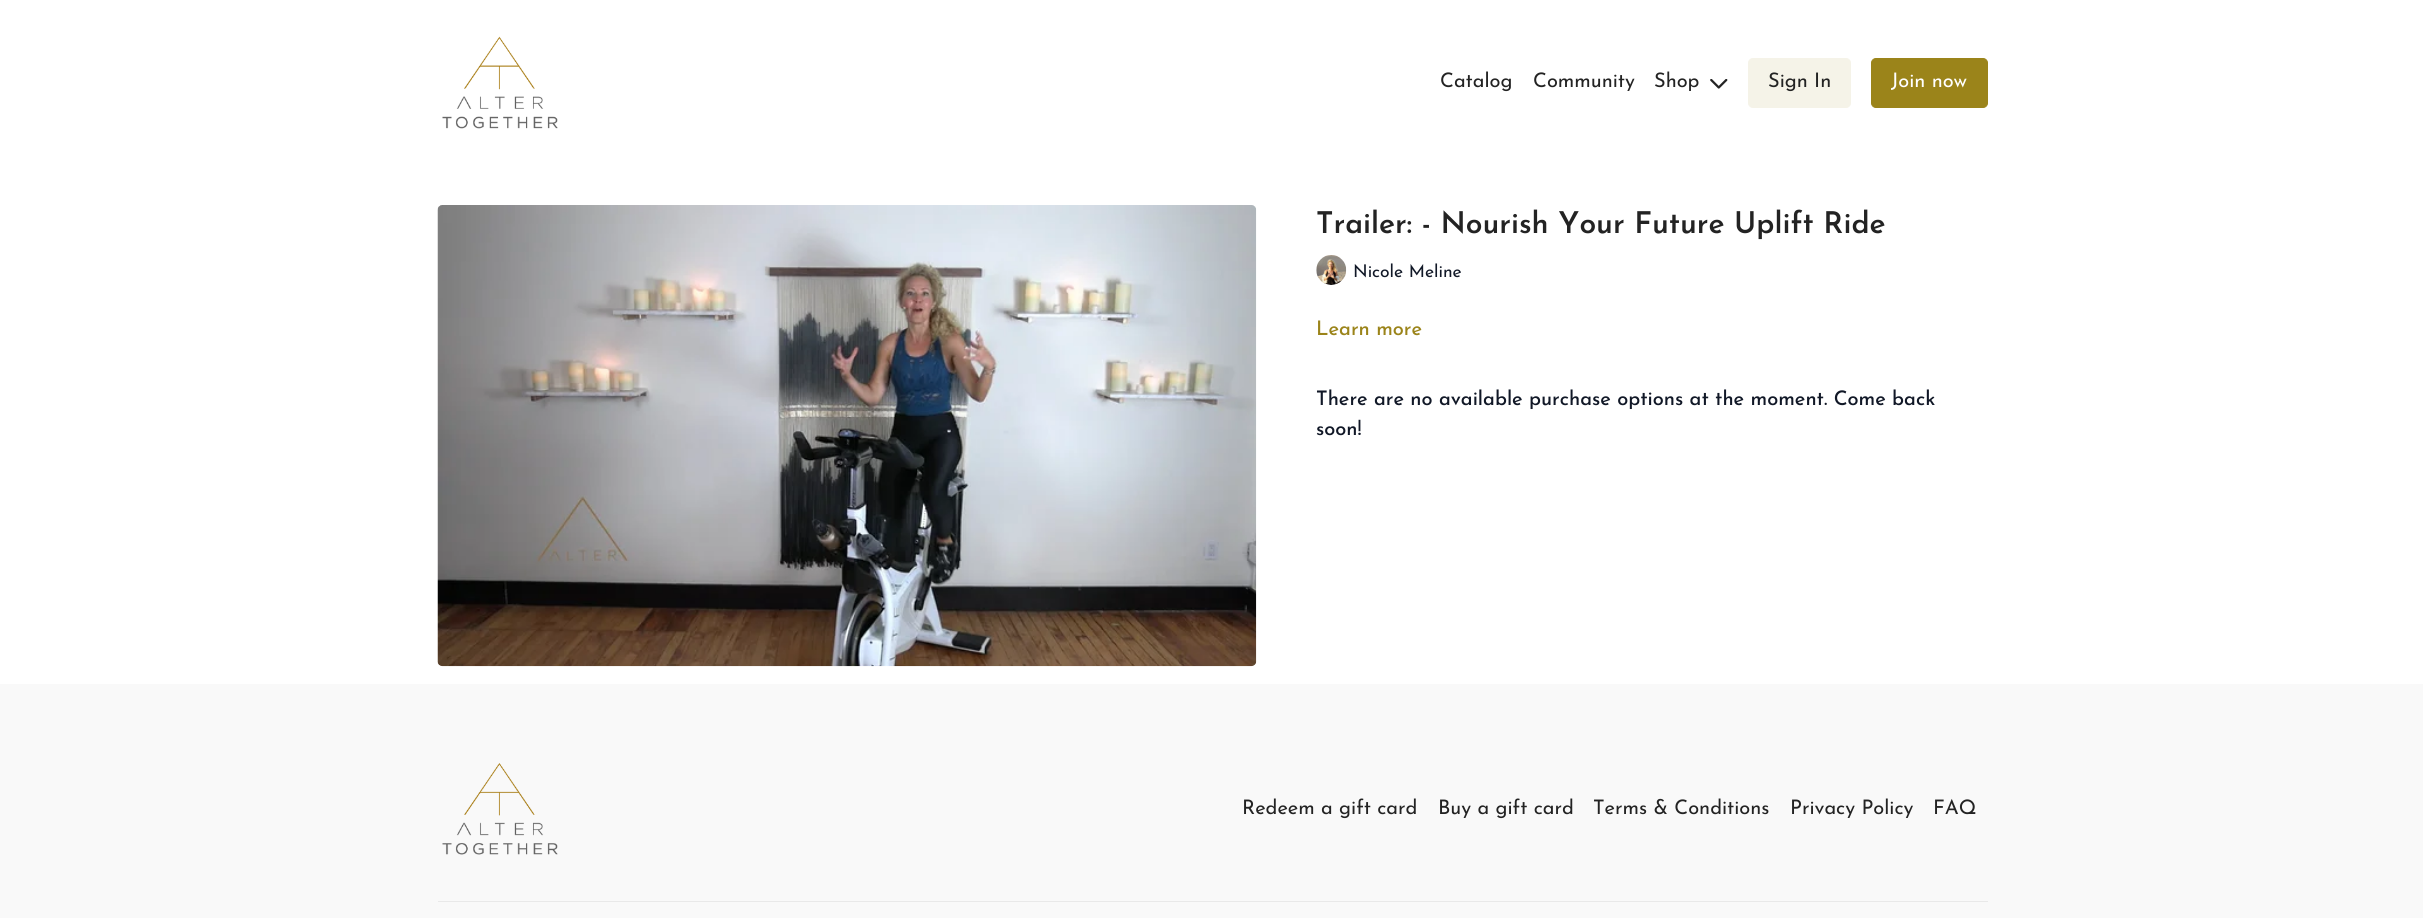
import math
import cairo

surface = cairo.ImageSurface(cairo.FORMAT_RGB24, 2423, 918)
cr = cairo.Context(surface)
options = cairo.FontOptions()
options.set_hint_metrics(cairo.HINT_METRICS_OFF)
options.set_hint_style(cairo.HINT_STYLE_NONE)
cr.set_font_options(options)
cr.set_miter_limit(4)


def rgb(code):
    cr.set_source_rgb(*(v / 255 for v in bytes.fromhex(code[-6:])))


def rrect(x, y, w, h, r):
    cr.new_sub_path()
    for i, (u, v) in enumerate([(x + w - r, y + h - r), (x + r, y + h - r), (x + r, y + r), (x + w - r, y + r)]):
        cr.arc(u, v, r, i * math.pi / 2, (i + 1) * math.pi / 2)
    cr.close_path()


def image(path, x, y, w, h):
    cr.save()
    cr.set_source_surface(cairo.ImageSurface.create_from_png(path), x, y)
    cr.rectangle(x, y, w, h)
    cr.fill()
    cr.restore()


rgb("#ffffff")
cr.paint()
image("img/1.png", 442, 36, 116, 93)
image("img/2.png", 1710, 79, 18, 10)
rgb("#f5f3e8")
rrect(1748.5, 58.5, 102, 49, 4.5)
cr.fill_preserve()
cr.set_line_width(1)
cr.stroke()
rgb("#9b841a")
rrect(1871.5, 58.5, 116, 49, 4.5)
cr.fill_preserve()
cr.stroke()
image("img/3.png", 437, 205, 820, 462)
image("img/4.png", 1316, 255, 31, 30)
rgb("#f9f9f9")
cr.rectangle(0, 684, 2423, 234)
cr.fill()
image("img/5.png", 442, 763, 116, 92)
rgb("#e9e9e9")
cr.rectangle(438, 901, 1550, 1)
cr.fill()
cr.select_font_face("Josefin Sans")
cr.set_font_size(20)
rgb("#232323")
for x, y, s in [
    (1440, 87, "Catalog"),
    (1533, 87, "Community"),
    (1654, 87, "Shop"),
    (1768, 87, "Sign In"),
]:
    cr.move_to(x, y)
    cr.show_text(s)
rgb("#ffffff")
cr.move_to(1891, 87)
cr.show_text("Join now")
cr.select_font_face("Josefin Sans SemiBold")
cr.set_font_size(30)
rgb("#232323")
cr.move_to(1316, 233)
cr.show_text("Trailer: - Nourish Your Future Uplift Ride")
cr.select_font_face("Josefin Sans")
cr.set_font_size(17.5)
rgb("#111827")
cr.move_to(1353, 277)
cr.show_text("Nicole Meline")
cr.select_font_face("Josefin Sans Medium")
cr.set_font_size(20)
rgb("#9b841a")
cr.move_to(1316, 335)
cr.show_text("Learn more")
rgb("#111827")
cr.move_to(1316, 405)
cr.show_text("There are no available purchase options at the moment. Come back")
cr.move_to(1316, 435)
cr.show_text("soon!")
cr.select_font_face("Josefin Sans")
rgb("#232323")
for x, y, s in [
    (1242, 814, "Redeem a gift card"),
    (1438, 814, "Buy a gift card"),
    (1593, 814, "Terms & Conditions"),
    (1790, 814, "Privacy Policy"),
    (1933, 814, "FAQ"),
]:
    cr.move_to(x, y)
    cr.show_text(s)
surface.write_to_png("page.png")
